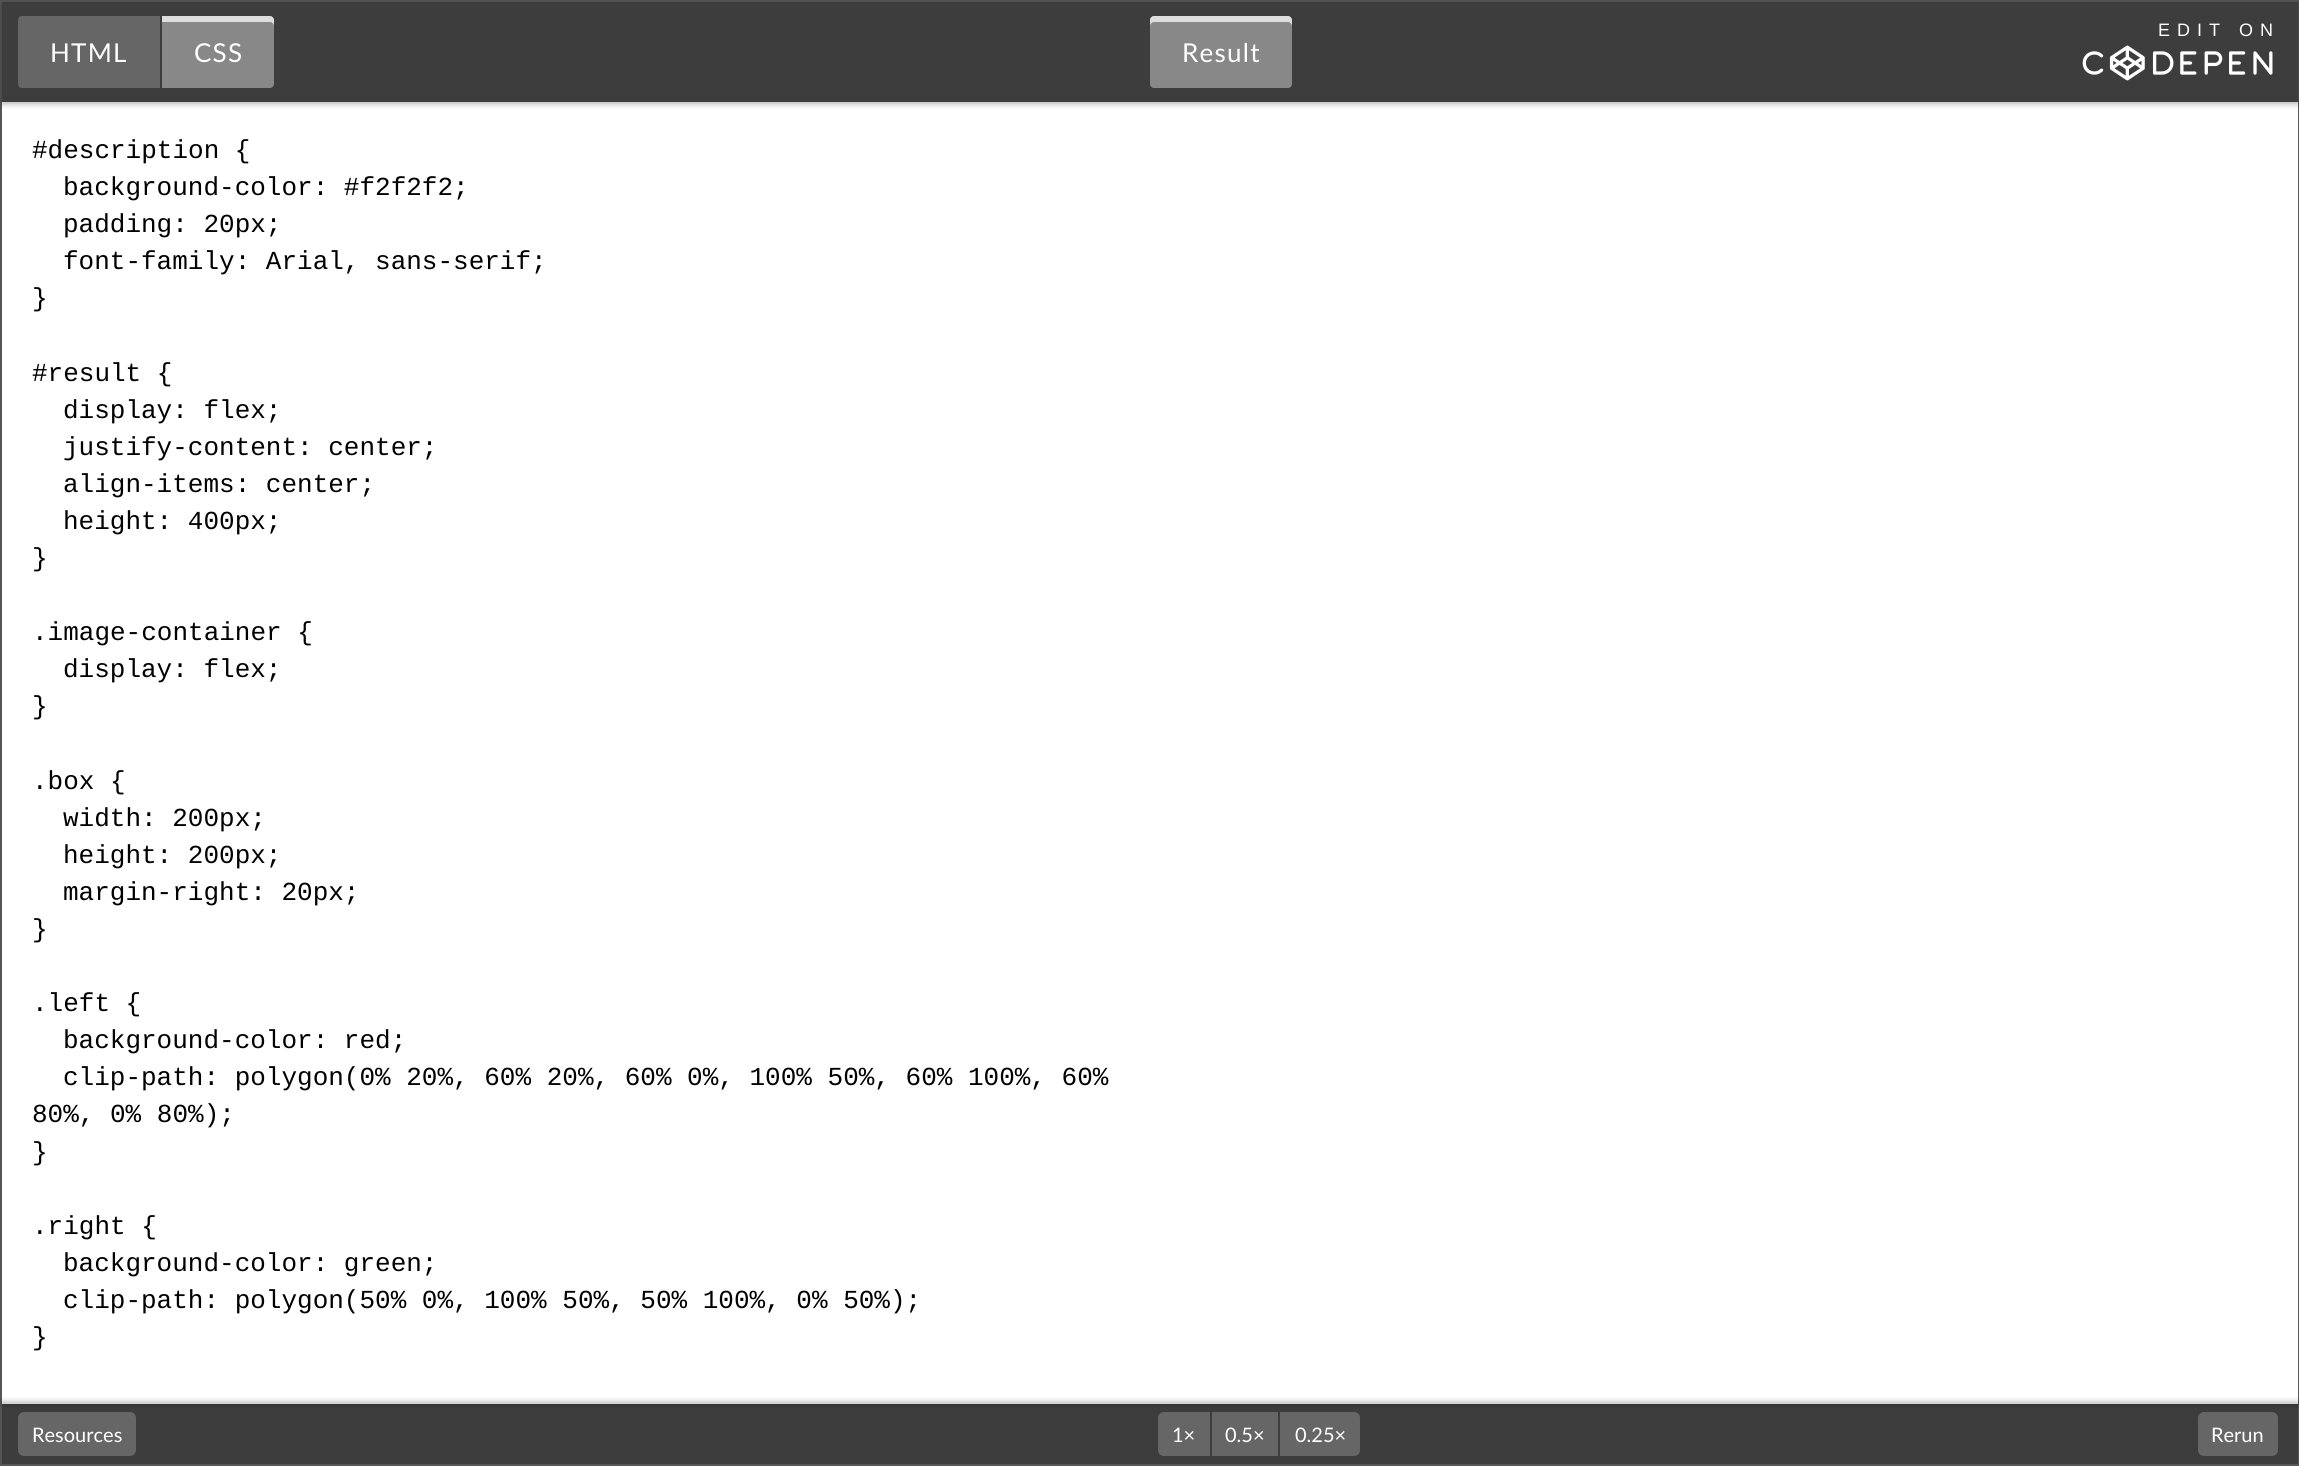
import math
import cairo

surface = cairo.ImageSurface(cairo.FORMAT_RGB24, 2299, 1466)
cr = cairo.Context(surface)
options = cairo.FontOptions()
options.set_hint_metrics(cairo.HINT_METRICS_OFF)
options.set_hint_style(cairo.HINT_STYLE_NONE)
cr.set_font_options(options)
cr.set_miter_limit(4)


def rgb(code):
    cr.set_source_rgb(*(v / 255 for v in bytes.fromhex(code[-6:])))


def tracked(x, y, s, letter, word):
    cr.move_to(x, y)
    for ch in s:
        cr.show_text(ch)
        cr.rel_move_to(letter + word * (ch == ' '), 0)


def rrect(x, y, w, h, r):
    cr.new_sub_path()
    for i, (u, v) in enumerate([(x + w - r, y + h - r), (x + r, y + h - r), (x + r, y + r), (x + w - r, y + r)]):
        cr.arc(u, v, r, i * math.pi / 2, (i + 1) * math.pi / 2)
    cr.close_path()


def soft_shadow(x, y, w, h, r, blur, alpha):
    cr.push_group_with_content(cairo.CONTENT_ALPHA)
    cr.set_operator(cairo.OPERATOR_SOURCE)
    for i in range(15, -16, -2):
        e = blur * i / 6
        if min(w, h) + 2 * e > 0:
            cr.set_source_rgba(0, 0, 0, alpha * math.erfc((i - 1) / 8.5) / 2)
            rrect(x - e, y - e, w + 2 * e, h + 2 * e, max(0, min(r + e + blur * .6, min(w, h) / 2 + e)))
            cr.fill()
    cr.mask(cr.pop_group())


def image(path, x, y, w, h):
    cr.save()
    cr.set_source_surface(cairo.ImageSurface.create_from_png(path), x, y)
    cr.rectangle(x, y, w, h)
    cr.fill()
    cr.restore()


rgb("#ffffff")
cr.paint()
cr.rectangle(1, 1, 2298, 1464)
rgb("#555555")
cr.stroke()
rgb("#000000")
soft_shadow(2, 4, 2296, 100, 0, 3, 0.3)
rgb("#3d3d3e")
cr.rectangle(2, 2, 2296, 100)
cr.fill()
image("img/1.png", 2082, 45, 191, 36)
rgb("#666666")
cr.new_path()
cr.move_to(22, 16)
cr.line_to(160, 16)
cr.line_to(160, 88)
cr.line_to(22, 88)
cr.curve_to(20, 88, 18, 86, 18, 84)
cr.line_to(18, 20)
cr.curve_to(18, 18, 20, 16, 22, 16)
cr.close_path()
cr.fill()
rgb("#888888")
cr.new_path()
cr.move_to(162, 16)
cr.line_to(270, 16)
cr.curve_to(272, 16, 274, 18, 274, 20)
cr.line_to(274, 84)
cr.curve_to(274, 86, 272, 88, 270, 88)
cr.line_to(162, 88)
cr.close_path()
cr.fill()
rgb("#dddddd")
cr.new_path()
cr.move_to(162, 22)
cr.line_to(270, 22)
cr.curve_to(272, 22, 274, 24, 274, 26)
cr.line_to(274, 20)
cr.curve_to(274, 18, 272, 16, 270, 16)
cr.line_to(162, 16)
cr.close_path()
cr.fill()
rgb("#888888")
rrect(1150, 16, 142, 72, 4)
cr.fill()
rgb("#dddddd")
cr.new_path()
cr.move_to(1154, 22)
cr.line_to(1288, 22)
cr.curve_to(1290, 22, 1292, 24, 1292, 26)
cr.line_to(1292, 20)
cr.curve_to(1292, 18, 1290, 16, 1288, 16)
cr.line_to(1154, 16)
cr.curve_to(1152, 16, 1150, 18, 1150, 20)
cr.line_to(1150, 26)
cr.curve_to(1150, 24, 1152, 22, 1154, 22)
cr.close_path()
cr.fill()
rgb("#3d3d3e")
cr.rectangle(2, 1404, 2296, 60)
cr.fill()
rgb("#666666")
rrect(18, 1412, 118, 44, 6)
cr.fill()
cr.new_path()
cr.move_to(1164, 1412)
cr.line_to(1210, 1412)
cr.line_to(1210, 1456)
cr.line_to(1164, 1456)
cr.curve_to(1160.5, 1456, 1158, 1453.5, 1158, 1450)
cr.line_to(1158, 1418)
cr.curve_to(1158, 1414.5, 1160.5, 1412, 1164, 1412)
cr.close_path()
cr.fill()
cr.rectangle(1212, 1412, 66, 44)
cr.fill()
cr.new_path()
cr.move_to(1280, 1412)
cr.line_to(1354, 1412)
cr.curve_to(1357.5, 1412, 1360, 1414.5, 1360, 1418)
cr.line_to(1360, 1450)
cr.curve_to(1360, 1453.5, 1357.5, 1456, 1354, 1456)
cr.line_to(1280, 1456)
cr.close_path()
cr.fill()
rgb("#000000")
soft_shadow(2, 1402, 2296, 2, 0, 3, 0.3)
rgb("#666666")
rrect(2198, 1412, 80, 44, 6)
cr.fill()
cr.select_font_face("Liberation Sans")
cr.set_font_size(18)
rgb("#ffffff")
tracked(2158, 36, "EDIT ON", 7, 0)
cr.select_font_face("Lato")
cr.set_font_size(26)
for x, y, s in [
    (50, 62, "HTML"),
    (194, 62, "CSS"),
    (1182, 62, "Result"),
]:
    tracked(x, y, s, 1.25, 0)
cr.select_font_face("Liberation Mono")
rgb("#000000")
for x, y, s in [
    (32, 158, "#description {"),
    (63, 195, "background-color: #f2f2f2;"),
    (63, 232, "padding: 20px;"),
    (63, 269, "font-family: Arial, sans-serif;"),
    (32, 306, "}"),
    (32, 381, "#result {"),
    (63, 418, "display: flex;"),
    (63, 455, "justify-content: center;"),
    (63, 492, "align-items: center;"),
    (63, 529, "height: 400px;"),
    (32, 566, "}"),
    (32, 640, ".image-container {"),
    (63, 677, "display: flex;"),
    (32, 714, "}"),
    (32, 789, ".box {"),
    (63, 826, "width: 200px;"),
    (63, 863, "height: 200px;"),
    (63, 900, "margin-right: 20px;"),
    (32, 937, "}"),
    (32, 1011, ".left {"),
    (63, 1048, "background-color: red;"),
    (63, 1085, "clip-path: polygon(0% 20%, 60% 20%, 60% 0%, 100% 50%, 60% 100%, 60%"),
    (32, 1122, "80%, 0% 80%);"),
    (32, 1160, "}"),
    (32, 1234, ".right {"),
    (63, 1271, "background-color: green;"),
    (63, 1308, "clip-path: polygon(50% 0%, 100% 50%, 50% 100%, 0% 50%);"),
    (32, 1345, "}"),
]:
    cr.move_to(x, y)
    cr.show_text(s)
cr.select_font_face("Lato")
cr.set_font_size(20)
rgb("#ffffff")
for x, y, s in [
    (32, 1442, "Resources"),
    (1172, 1442, "1×"),
    (1225, 1442, "0.5×"),
    (1295, 1442, "0.25×"),
    (2211, 1442, "Rerun"),
]:
    cr.move_to(x, y)
    cr.show_text(s)
surface.write_to_png("page.png")
